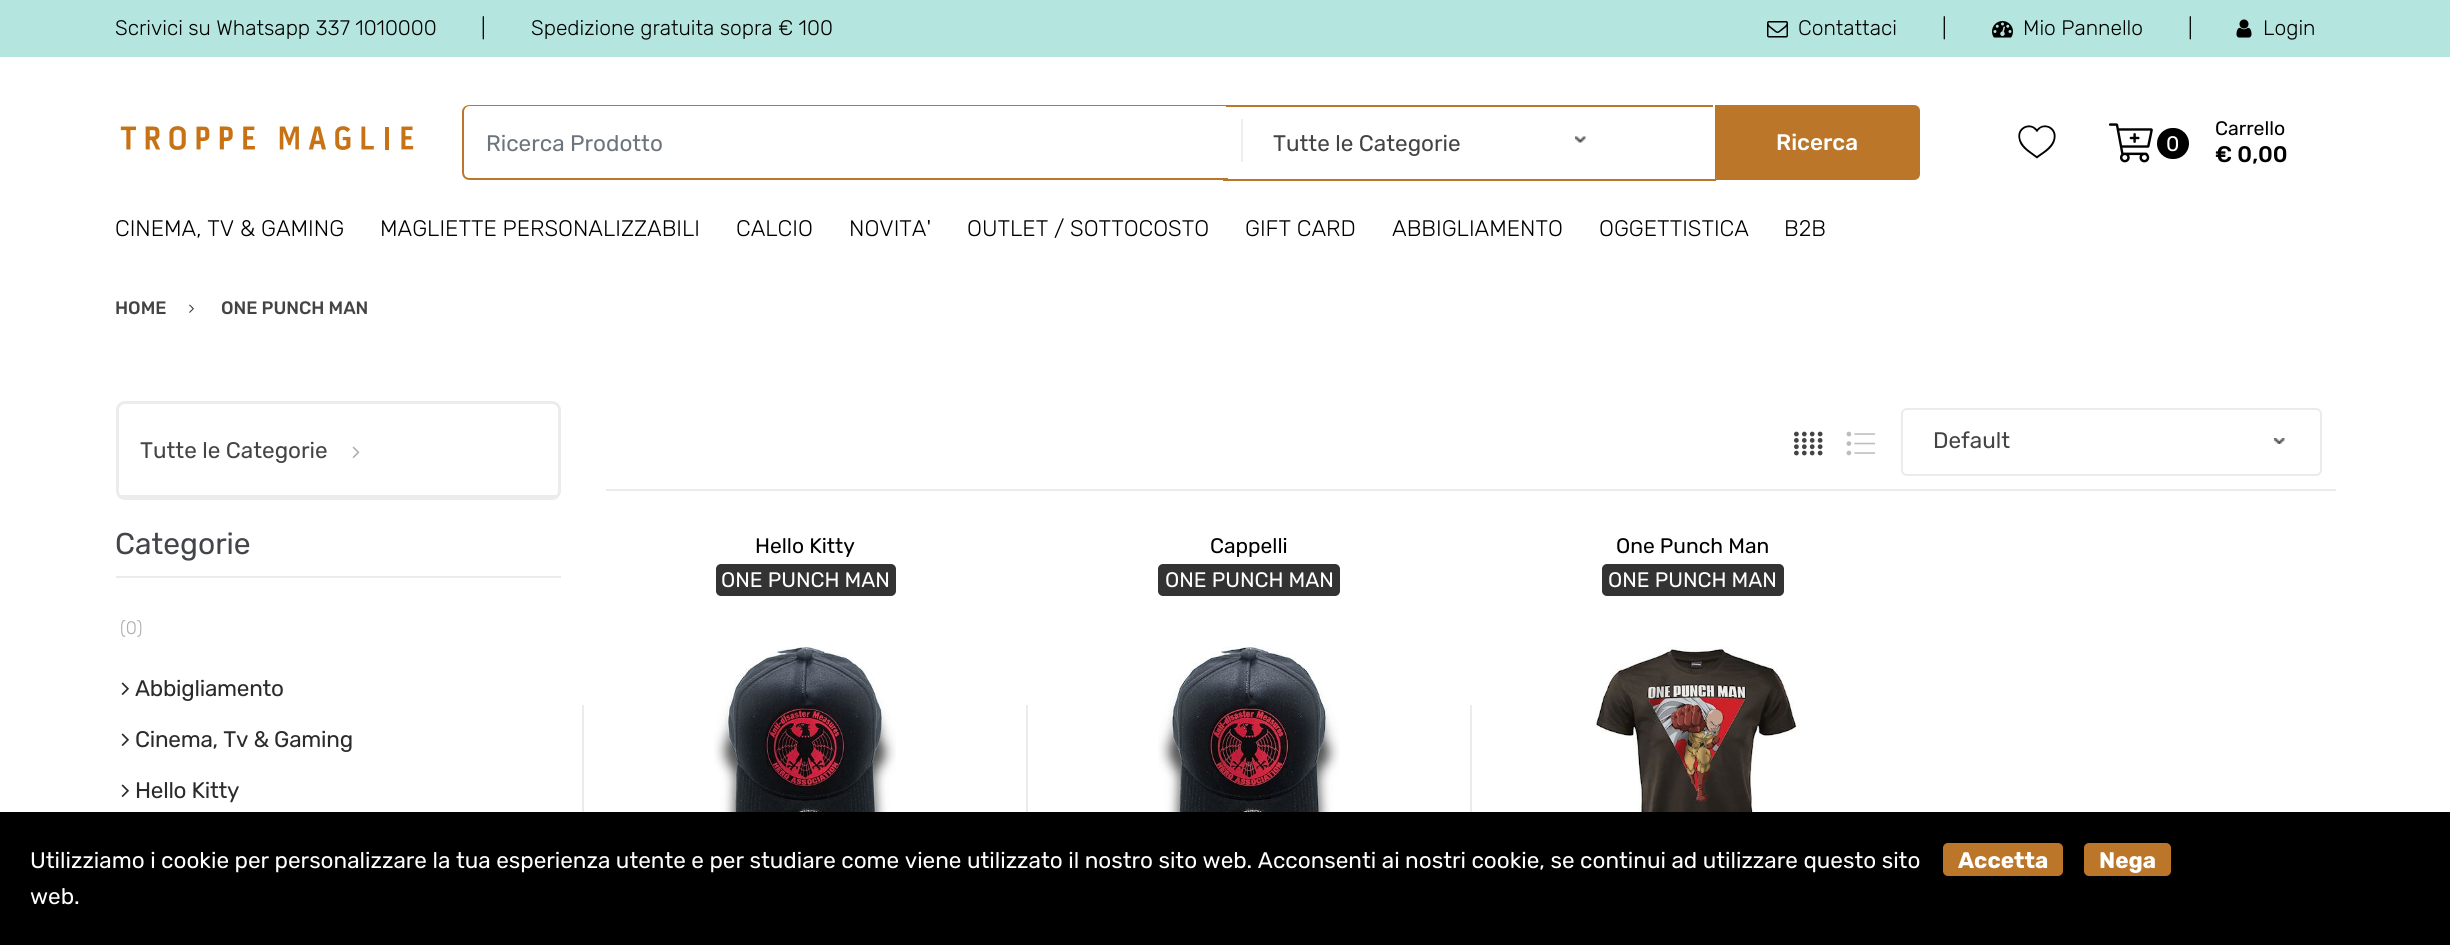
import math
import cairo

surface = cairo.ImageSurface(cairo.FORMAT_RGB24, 2450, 945)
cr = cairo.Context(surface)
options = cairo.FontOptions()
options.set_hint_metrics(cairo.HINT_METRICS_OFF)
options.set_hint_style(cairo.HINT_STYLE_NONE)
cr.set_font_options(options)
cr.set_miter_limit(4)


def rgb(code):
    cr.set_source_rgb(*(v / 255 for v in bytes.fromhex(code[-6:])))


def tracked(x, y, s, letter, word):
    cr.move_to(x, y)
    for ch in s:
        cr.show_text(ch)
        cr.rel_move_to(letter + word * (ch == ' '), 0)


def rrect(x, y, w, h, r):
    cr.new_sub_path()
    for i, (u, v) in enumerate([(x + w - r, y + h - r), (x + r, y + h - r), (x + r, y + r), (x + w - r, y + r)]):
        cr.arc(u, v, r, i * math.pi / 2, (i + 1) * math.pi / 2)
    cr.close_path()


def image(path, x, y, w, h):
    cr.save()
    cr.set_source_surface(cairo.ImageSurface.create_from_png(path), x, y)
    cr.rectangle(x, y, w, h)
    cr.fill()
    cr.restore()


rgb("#ffffff")
cr.paint()
rgb("#b4e6df")
cr.rectangle(0, 0, 2450, 57)
cr.fill()
image("img/1.png", 1767, 21, 21, 17)
image("img/2.png", 1992, 21, 21, 17)
image("img/3.png", 2236, 19, 16, 19)
image("img/4.png", 120, 126, 294, 24)
rgb("#bc762a")
cr.rectangle(1226, 105, 487, 2)
cr.fill()
cr.rectangle(1223, 179, 493, 2)
cr.fill()
cr.set_fill_rule(cairo.FILL_RULE_EVEN_ODD)
cr.new_path()
cr.move_to(470, 105)
cr.line_to(1228, 105)
cr.line_to(1228, 180)
cr.line_to(470, 180)
cr.curve_to(465, 180, 462, 177, 462, 172)
cr.line_to(462, 112)
cr.curve_to(462, 108, 465, 105, 470, 105)
cr.close_path()
cr.move_to(470, 106)
cr.line_to(1228, 106)
cr.line_to(1228, 178)
cr.line_to(470, 178)
cr.curve_to(466, 178, 464, 176, 464, 172)
cr.line_to(464, 112)
cr.curve_to(464, 109, 466, 106, 470, 106)
cr.close_path()
cr.fill()
image("img/5.png", 1575, 136, 11, 7)
rgb("#eeeeee")
cr.rectangle(1241, 119, 2, 43)
cr.fill()
rgb("#bc762a")
cr.new_path()
cr.move_to(1715, 105)
cr.line_to(1914, 105)
cr.curve_to(1917.5, 105, 1920, 107.5, 1920, 111)
cr.line_to(1920, 174)
cr.curve_to(1920, 177.5, 1917.5, 180, 1914, 180)
cr.line_to(1715, 180)
cr.close_path()
cr.fill()
image("img/6.png", 2018, 125, 38, 34)
image("img/7.png", 2109, 123, 44, 40)
rgb("#000000")
rrect(2157, 128, 32, 31, 15.5)
cr.fill()
image("img/8.png", 189, 304, 5, 9)
rrect(117.5, 402.5, 442, 96, 7.5)
rgb("#ececec")
cr.set_line_width(3)
cr.stroke()
cr.rectangle(119, 495, 439, 2)
cr.fill()
image("img/9.png", 352, 446, 8, 12)
rgb("#ebebeb")
cr.rectangle(116, 576, 445, 2)
cr.fill()
image("img/10.png", 121, 682, 8, 13)
image("img/10.png", 121, 733, 8, 13)
image("img/10.png", 121, 784, 8, 13)
cr.rectangle(606, 489, 1730, 2)
cr.fill()
image("img/11.png", 1794, 431, 29, 25)
image("img/12.png", 1846, 431, 29, 25)
image("img/13.png", 2274, 438, 11, 6)
rrect(1902, 409, 419, 66, 5)
cr.set_line_width(2)
cr.stroke()
rgb("#333333")
rrect(716, 564, 180, 32, 5)
cr.fill()
rgb("#ebebeb")
cr.rectangle(582, 705, 2, 107)
cr.fill()
image("img/14.png", 714, 647, 182, 165)
rgb("#333333")
rrect(1158, 564, 182, 32, 5)
cr.fill()
rgb("#ebebeb")
cr.rectangle(1026, 705, 2, 107)
cr.fill()
image("img/15.png", 1158, 647, 182, 165)
rgb("#333333")
rrect(1602, 564, 182, 32, 5)
cr.fill()
rgb("#ebebeb")
cr.rectangle(1470, 705, 2, 107)
cr.fill()
image("img/16.png", 1595, 647, 205, 165)
rgb("#000000")
cr.rectangle(0, 812, 2450, 133)
cr.fill()
rgb("#bc762a")
rrect(1943, 843, 120, 33, 5)
cr.fill()
rrect(2084, 843, 87, 33, 5)
cr.fill()
cr.select_font_face("Rubik Light")
cr.set_font_size(21)
rgb("#000000")
for x, y, s in [
    (115, 35, "Scrivici su Whatsapp 337 1010000"),
    (481, 35, "|"),
    (531, 35, "Spedizione gratuita sopra € 100"),
    (1798, 35, "Contattaci"),
    (1942, 35, "|"),
    (2023, 35, "Mio Pannello"),
    (2188, 35, "|"),
    (2263, 35, "Login"),
]:
    cr.move_to(x, y)
    cr.show_text(s)
cr.select_font_face("Rubik")
cr.set_font_size(22.5)
rgb("#6c757d")
cr.move_to(486, 151)
cr.show_text("Ricerca Prodotto")
rgb("#444444")
cr.move_to(1273, 151)
cr.show_text("Tutte le Categorie")
cr.select_font_face("Rubik Medium")
rgb("#ffffff")
cr.move_to(1776, 150)
cr.show_text("Ricerca")
cr.select_font_face("Rubik")
cr.set_font_size(21)
tracked(2166, 151, "0", -2, 0)
cr.set_font_size(19.5)
rgb("#000000")
cr.move_to(2215, 135)
cr.show_text("Carrello")
cr.select_font_face("Rubik Medium")
cr.set_font_size(22.5)
cr.move_to(2215, 162)
cr.show_text("€ 0,00")
cr.select_font_face("Rubik Light")
for x, y, s in [
    (115, 236, "CINEMA, TV & GAMING"),
    (380, 236, "MAGLIETTE PERSONALIZZABILI"),
    (736, 236, "CALCIO"),
    (849, 236, "NOVITA'"),
    (967, 236, "OUTLET / SOTTOCOSTO"),
    (1245, 236, "GIFT CARD"),
    (1392, 236, "ABBIGLIAMENTO"),
    (1599, 236, "OGGETTISTICA"),
    (1784, 236, "B2B"),
]:
    cr.move_to(x, y)
    cr.show_text(s)
cr.select_font_face("Rubik Medium")
cr.set_font_size(18)
rgb("#444444")
cr.move_to(115, 314)
cr.show_text("HOME")
cr.move_to(221, 314)
cr.show_text("ONE PUNCH MAN")
cr.select_font_face("Rubik")
cr.set_font_size(22.5)
cr.move_to(140, 458)
cr.show_text("Tutte le Categorie")
cr.set_font_size(30)
rgb("#43454b")
cr.move_to(115, 554)
cr.show_text("Categorie")
cr.select_font_face("Rubik Light")
cr.set_font_size(18)
rgb("#acacac")
cr.move_to(120, 634)
cr.show_text("(0)")
cr.select_font_face("Rubik")
cr.set_font_size(22.5)
rgb("#2b2b2b")
for x, y, s in [
    (135, 696, "Abbigliamento"),
    (135, 747, "Cinema, Tv & Gaming"),
    (135, 798, "Hello Kitty"),
]:
    tracked(x, y, s, -0.25, 0)
rgb("#444444")
cr.move_to(1933, 448)
cr.show_text("Default")
cr.set_font_size(21)
rgb("#000000")
cr.move_to(755, 553)
cr.show_text("Hello Kitty")
rgb("#ffffff")
cr.move_to(721, 587)
cr.show_text("ONE PUNCH MAN")
rgb("#000000")
cr.move_to(1210, 553)
cr.show_text("Cappelli")
rgb("#ffffff")
cr.move_to(1165, 587)
cr.show_text("ONE PUNCH MAN")
rgb("#000000")
cr.move_to(1616, 553)
cr.show_text("One Punch Man")
rgb("#ffffff")
cr.move_to(1608, 587)
cr.show_text("ONE PUNCH MAN")
cr.set_font_size(22.5)
cr.move_to(30, 868)
cr.show_text("Utilizziamo i cookie per personalizzare la tua esperienza utente e per studiare come viene utilizzato il nostro sito web. Acconsenti ai nostri cookie, se continui ad utilizzare questo sito")
cr.move_to(30, 904)
cr.show_text("web.")
cr.select_font_face("Rubik", cairo.FONT_SLANT_NORMAL, cairo.FONT_WEIGHT_BOLD)
cr.move_to(1958, 868)
cr.show_text("Accetta")
cr.move_to(2099, 868)
cr.show_text("Nega")
surface.write_to_png("page.png")
